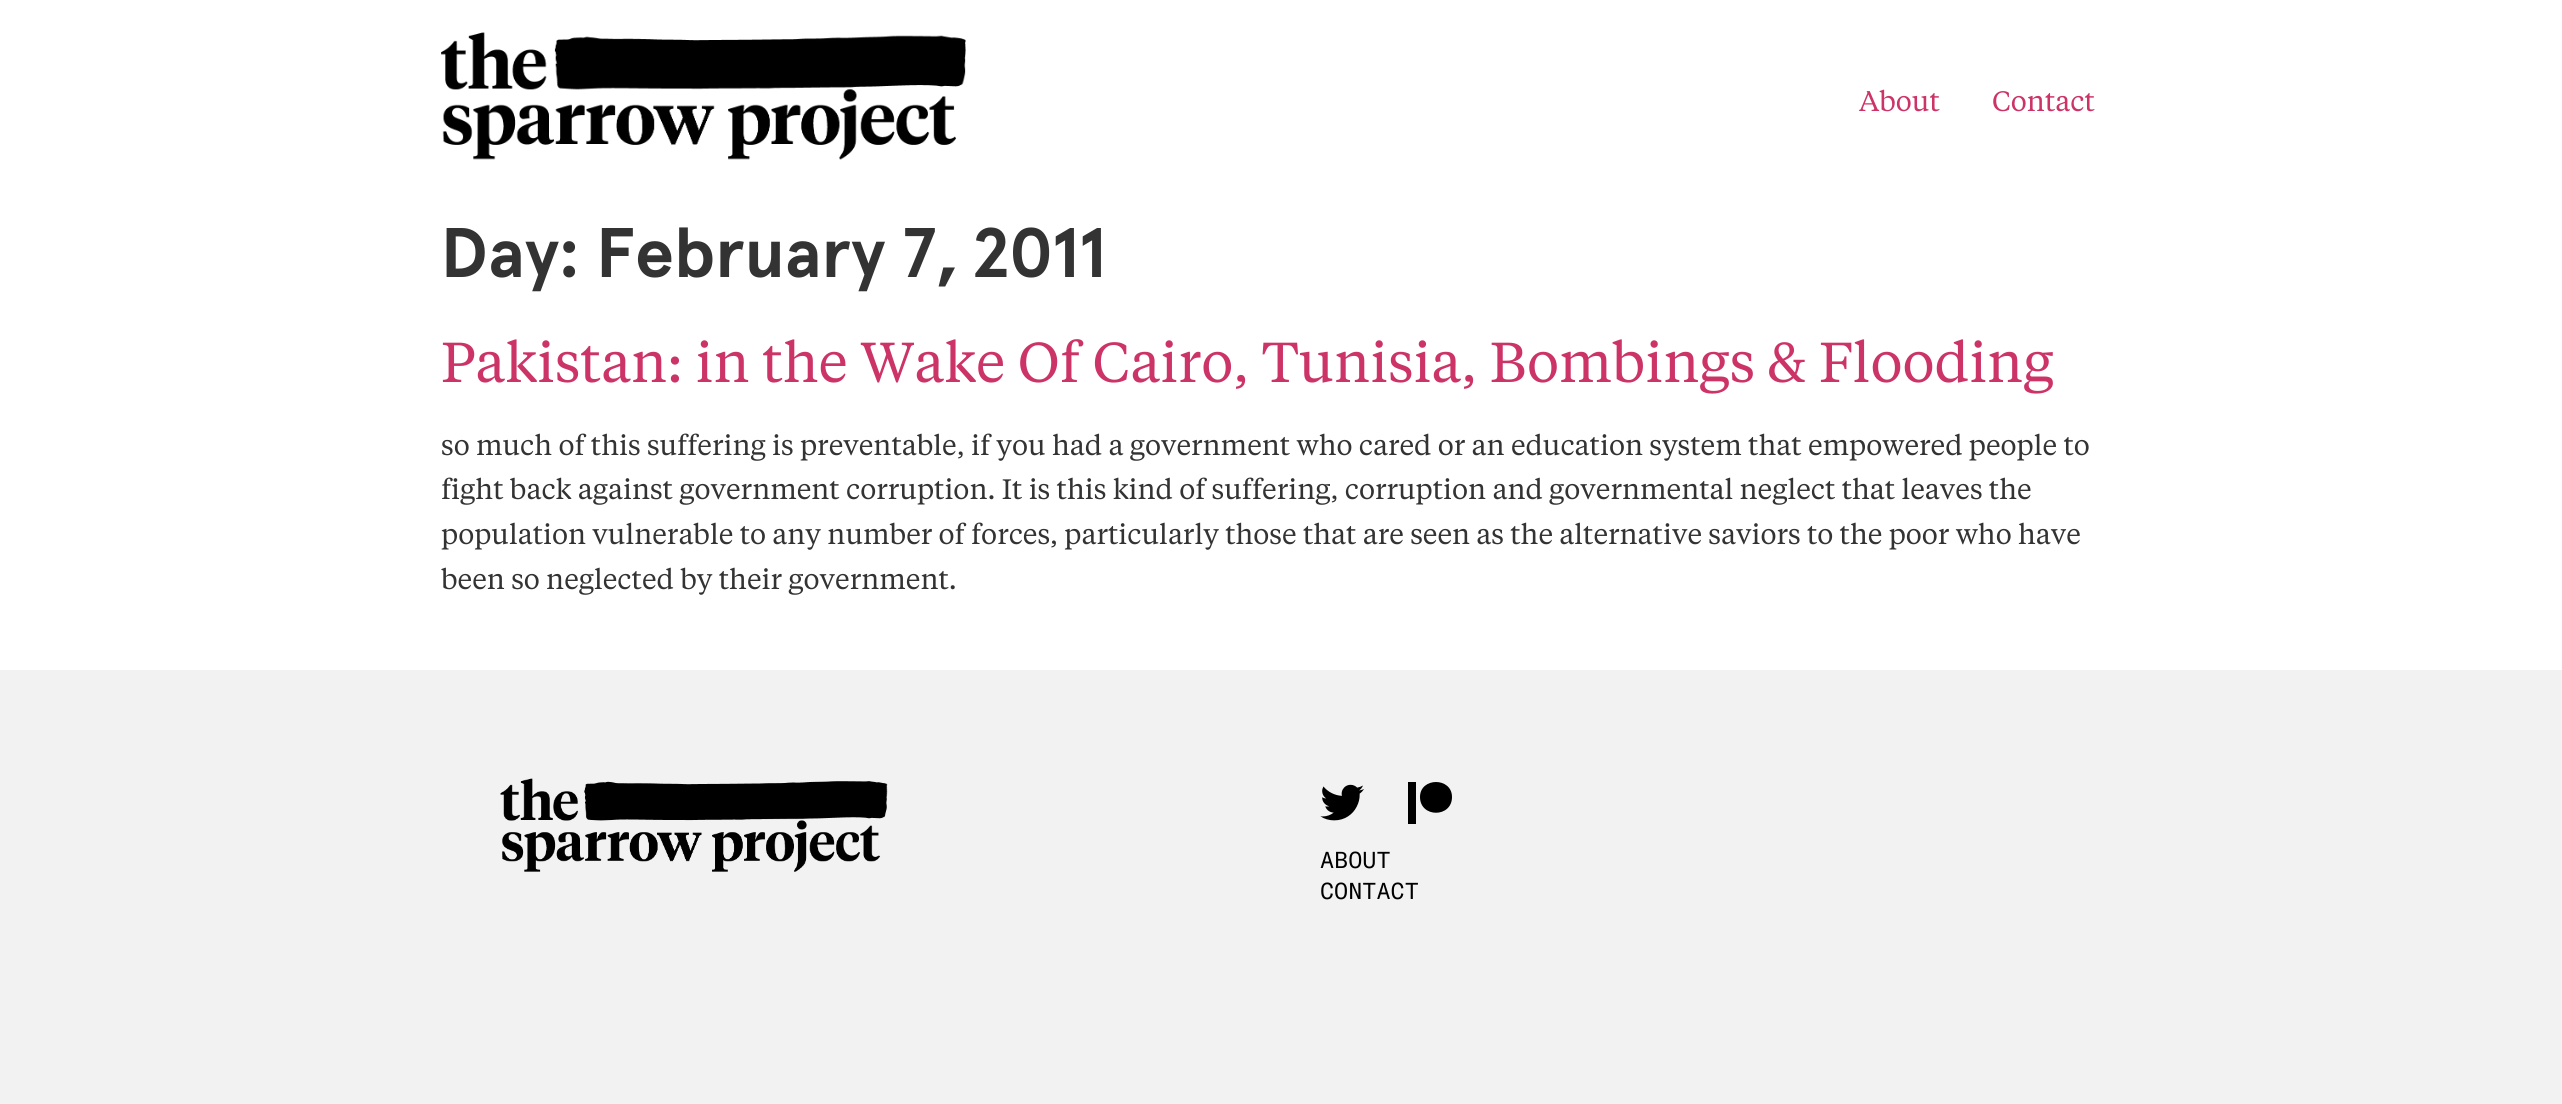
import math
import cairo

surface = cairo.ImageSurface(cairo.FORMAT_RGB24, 2562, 1104)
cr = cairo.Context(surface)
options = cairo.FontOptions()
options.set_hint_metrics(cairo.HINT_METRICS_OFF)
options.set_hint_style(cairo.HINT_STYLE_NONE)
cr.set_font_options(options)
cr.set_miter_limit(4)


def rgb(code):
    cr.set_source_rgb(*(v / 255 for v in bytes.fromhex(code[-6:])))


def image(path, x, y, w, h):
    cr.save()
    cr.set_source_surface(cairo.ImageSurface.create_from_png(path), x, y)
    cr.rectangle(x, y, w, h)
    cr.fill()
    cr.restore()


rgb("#ffffff")
cr.paint()
image("img/1.png", 441, 32, 525, 128)
rgb("#f2f2f2")
cr.rectangle(0, 670, 2562, 434)
cr.fill()
image("img/2.png", 500, 778, 388, 94)
image("img/3.png", 1320, 784, 44, 37)
rgb("#000000")
cr.new_path()
cr.move_to(1452, 797)
cr.curve_to(1452, 818, 1420, 818, 1420, 797)
cr.curve_to(1420, 777, 1452, 777, 1452, 797)
cr.close_path()
cr.move_to(1408, 824)
cr.line_to(1408, 782)
cr.line_to(1416, 782)
cr.line_to(1416, 824)
cr.close_path()
cr.fill()
cr.select_font_face("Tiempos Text")
cr.set_font_size(28)
rgb("#cc3366")
cr.move_to(1859, 111)
cr.show_text("About")
cr.move_to(1992, 111)
cr.show_text("Contact")
cr.select_font_face("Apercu", cairo.FONT_SLANT_NORMAL, cairo.FONT_WEIGHT_BOLD)
cr.set_font_size(70)
rgb("#333333")
cr.move_to(441, 277)
cr.show_text("Day: February 7, 2011")
cr.select_font_face("Tiempos Text")
cr.set_font_size(56)
rgb("#cc3366")
cr.move_to(441, 382)
cr.show_text("Pakistan: in the Wake Of Cairo, Tunisia, Bombings & Flooding")
cr.set_font_size(28)
rgb("#333333")
for x, y, s in [
    (441, 455, "so much of this suffering is preventable, if you had a government who cared or an education system that empowered people to"),
    (441, 499, "fight back against government corruption. It is this kind of suffering, corruption and governmental neglect that leaves the"),
    (441, 544, "population vulnerable to any number of forces, particularly those that are seen as the alternative saviors to the poor who have"),
    (441, 589, "been so neglected by their government."),
]:
    cr.move_to(x, y)
    cr.show_text(s)
cr.select_font_face("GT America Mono")
cr.set_font_size(22.75)
rgb("#000000")
cr.move_to(1320, 868)
cr.show_text("ABOUT")
cr.move_to(1320, 899)
cr.show_text("CONTACT")
surface.write_to_png("page.png")
